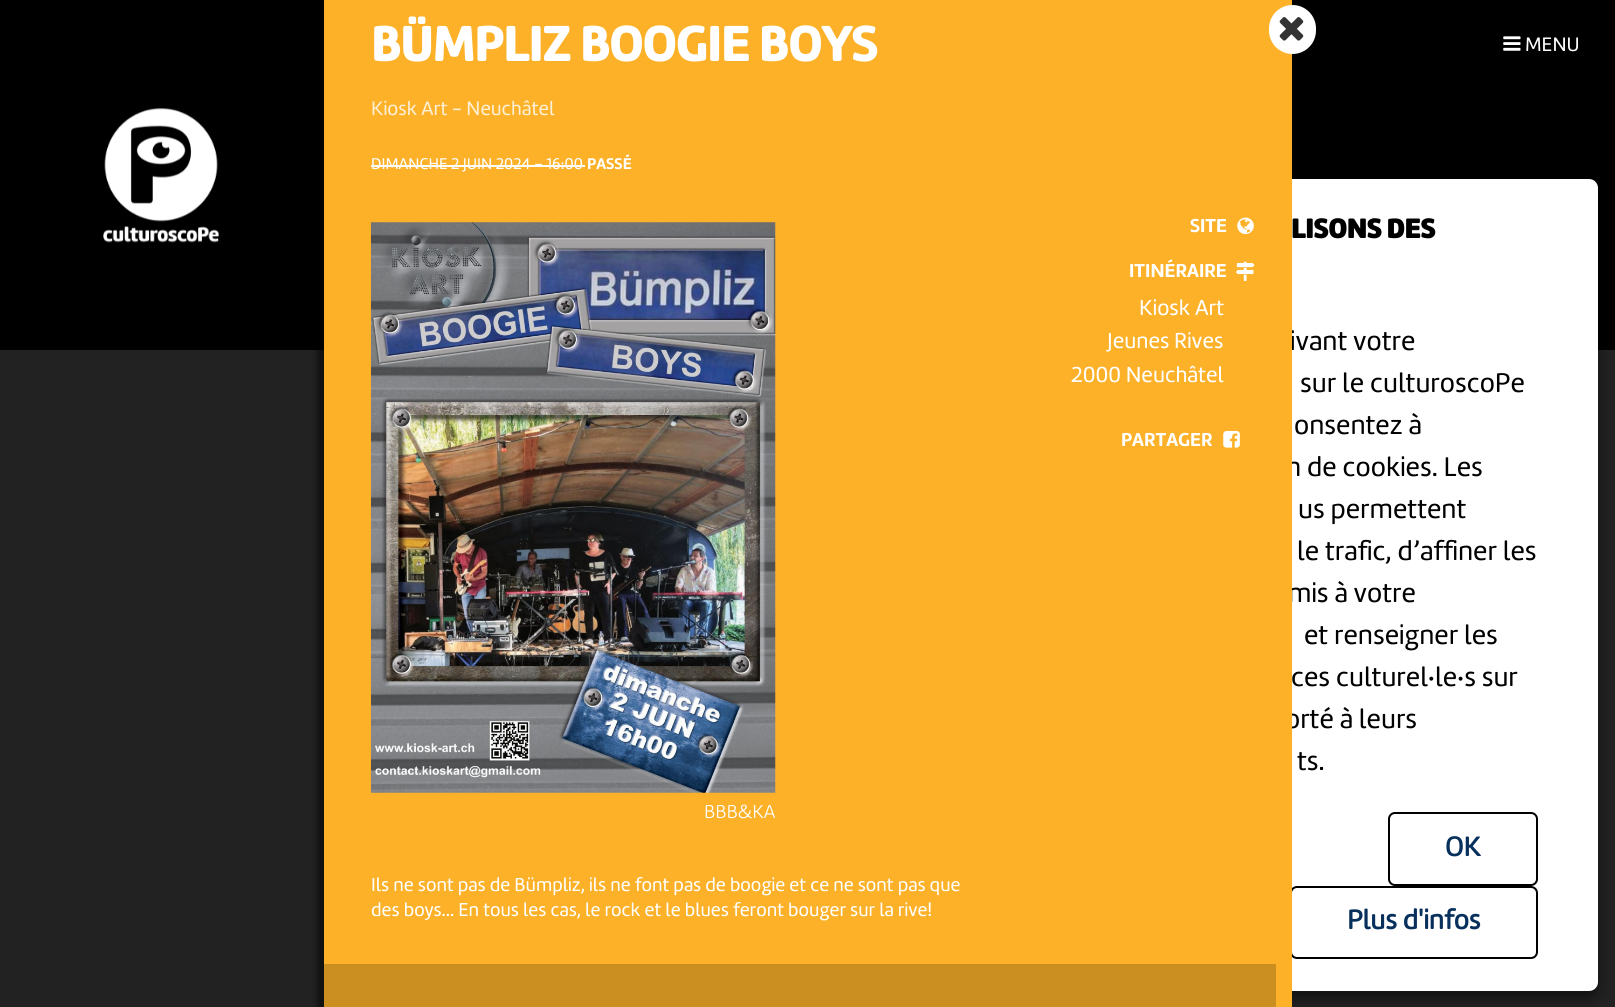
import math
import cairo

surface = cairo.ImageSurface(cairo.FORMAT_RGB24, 1615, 1007)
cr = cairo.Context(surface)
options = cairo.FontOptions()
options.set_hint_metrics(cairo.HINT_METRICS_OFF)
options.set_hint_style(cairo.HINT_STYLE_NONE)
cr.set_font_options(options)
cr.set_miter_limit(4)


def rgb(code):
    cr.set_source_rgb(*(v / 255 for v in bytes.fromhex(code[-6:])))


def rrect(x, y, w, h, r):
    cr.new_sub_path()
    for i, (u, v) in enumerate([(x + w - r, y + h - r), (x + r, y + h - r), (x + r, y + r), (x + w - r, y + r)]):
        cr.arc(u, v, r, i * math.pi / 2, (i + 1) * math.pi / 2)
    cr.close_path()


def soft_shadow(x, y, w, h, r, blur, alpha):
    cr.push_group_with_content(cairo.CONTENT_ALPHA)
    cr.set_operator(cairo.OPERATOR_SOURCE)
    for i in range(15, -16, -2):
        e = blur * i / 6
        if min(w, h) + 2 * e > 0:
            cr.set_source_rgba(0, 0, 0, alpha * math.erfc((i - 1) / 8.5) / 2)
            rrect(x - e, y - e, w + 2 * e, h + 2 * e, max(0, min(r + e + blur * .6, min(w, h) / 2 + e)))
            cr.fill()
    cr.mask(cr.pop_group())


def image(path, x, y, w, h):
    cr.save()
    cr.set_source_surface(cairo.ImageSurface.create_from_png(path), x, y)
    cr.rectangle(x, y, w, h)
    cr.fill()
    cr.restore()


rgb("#222222")
cr.paint()
rgb("#000000")
cr.rectangle(0, 0, 1615, 350)
cr.fill()
image("img/1.png", 103, 108, 116, 135)
rgb("#000000")
soft_shadow(1113, 186, 485, 812, 9, 7, 0.5)
rgb("#ffffff")
rrect(1115, 181, 481, 808, 7)
cr.fill_preserve()
cr.set_line_width(4)
cr.stroke()
rrect(1291, 887, 246, 71, 6)
rgb("#000000")
cr.set_line_width(2)
cr.stroke()
rgb("#000000")
soft_shadow(317, -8, 968, 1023, 0, 2.5, 0.5)
image("img/7.png", 1503, 36, 18, 15)
rrect(1389, 813, 148, 72, 6)
rgb("#000000")
cr.stroke()
cr.select_font_face("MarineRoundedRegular")
cr.set_font_size(20.25)
rgb("#ffffff")
cr.move_to(1525, 51)
cr.show_text("MENU")
cr.select_font_face("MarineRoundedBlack", cairo.FONT_SLANT_NORMAL, cairo.FONT_WEIGHT_BOLD)
cr.set_font_size(28)
rgb("#000000")
cr.move_to(1291, 238)
cr.show_text("LISONS DES")
cr.select_font_face("MarineRoundedRegular")
for x, y, s in [
    (1290, 350, "ivant votre"),
    (1300, 392, "sur le culturoscoPe"),
    (1294, 434, "onsentez à"),
    (1286, 476, "n de cookies. Les"),
    (1298, 518, "us permettent"),
    (1297, 560, "le trafic, d’affiner les"),
    (1288, 602, "mis à votre"),
    (1304, 644, "et renseigner les"),
    (1291, 686, "ces culturel·le·s sur"),
    (1285, 728, "orté à leurs"),
]:
    cr.move_to(x, y)
    cr.show_text(s)
rgb("#fcb129")
cr.rectangle(324, 0, 968, 1007)
cr.fill()
rgb("#ffffff")
rrect(1269, 5, 47, 49, 23.5)
cr.fill()
image("img/6.png", 1279, 17, 25, 24)
cr.set_font_size(20.25)
rgb("#feefd4")
cr.move_to(371, 115)
cr.show_text("Kiosk Art - Neuchâtel")
cr.select_font_face("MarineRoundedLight")
cr.set_font_size(19.5)
rgb("#ffffff")
cr.move_to(704, 818)
cr.show_text("BBB&KA")
image("img/5.png", 371, 222, 405, 571)
rgb("#ca8e21")
cr.rectangle(324, 964, 952, 43)
cr.fill()
image("img/4.png", 1223, 431, 17, 17)
cr.select_font_face("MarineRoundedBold")
cr.set_font_size(19.4)
rgb("#ffffff")
cr.move_to(1121, 446)
cr.show_text("PARTAGER")
cr.select_font_face("MarineRoundedRegular")
cr.set_font_size(22.5)
for x, y, s in [
    (1071, 382, "2000 Neuchâtel"),
    (1107, 348, "Jeunes Rives"),
    (1139, 315, "Kiosk Art"),
]:
    cr.move_to(x, y)
    cr.show_text(s)
image("img/3.png", 1236, 261, 19, 20)
cr.select_font_face("MarineRoundedBold")
cr.set_font_size(19.4)
cr.move_to(1129, 277)
cr.show_text("ITINÉRAIRE")
image("img/2.png", 1237, 217, 17, 18)
cr.move_to(1190, 232)
cr.show_text("SITE")
cr.select_font_face("MarineRoundedRegular")
cr.move_to(371, 916)
cr.show_text("des boys... En tous les cas, le rock et le blues feront bouger sur la rive!")
cr.move_to(371, 891)
cr.show_text("Ils ne sont pas de Bümpliz, ils ne font pas de boogie et ce ne sont pas que")
cr.select_font_face("MarineRoundedBold", cairo.FONT_SLANT_NORMAL, cairo.FONT_WEIGHT_BOLD)
cr.set_font_size(50.4)
cr.move_to(371, 61)
cr.show_text("BÜMPLIZ BOOGIE BOYS")
cr.select_font_face("MarineRoundedBold")
cr.set_font_size(16.1)
cr.move_to(587, 169)
cr.show_text("PASSÉ")
cr.rectangle(371, 165, 214, 2)
cr.fill()
cr.select_font_face("MarineRoundedRegular")
cr.move_to(371, 169)
cr.show_text("DIMANCHE 2 JUIN 2024 – 16:00")
cr.set_font_size(28)
rgb("#000000")
cr.move_to(1297, 770)
cr.show_text("ts.")
cr.select_font_face("MarineRoundedRegular", cairo.FONT_SLANT_NORMAL, cairo.FONT_WEIGHT_BOLD)
rgb("#07305c")
cr.move_to(1445, 856)
cr.show_text("OK")
cr.move_to(1347, 929)
cr.show_text("Plus d'infos")
surface.write_to_png("page.png")
